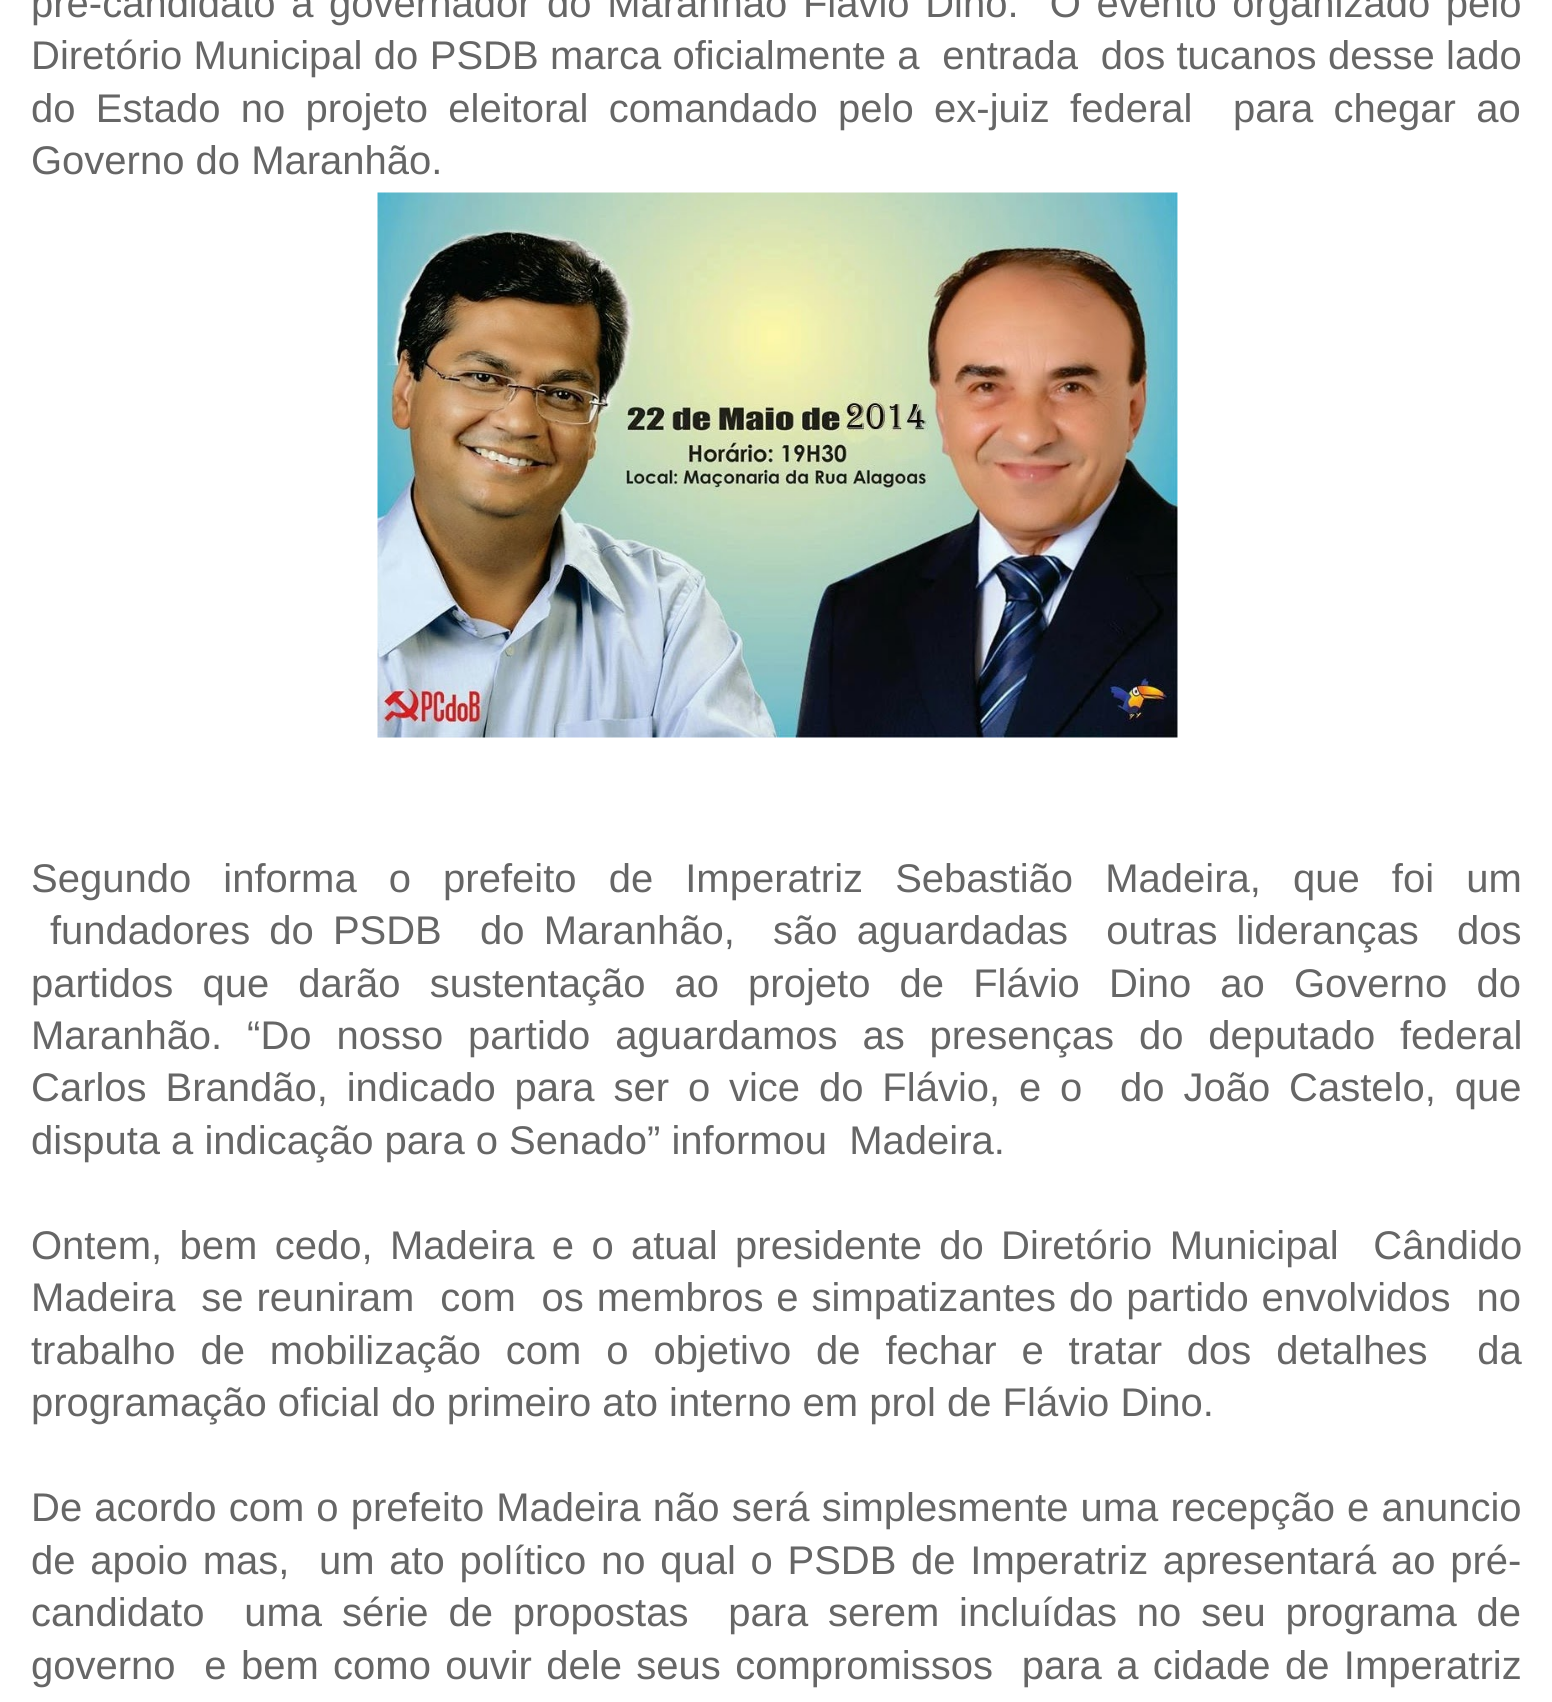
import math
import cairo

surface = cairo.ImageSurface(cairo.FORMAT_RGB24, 1552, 1702)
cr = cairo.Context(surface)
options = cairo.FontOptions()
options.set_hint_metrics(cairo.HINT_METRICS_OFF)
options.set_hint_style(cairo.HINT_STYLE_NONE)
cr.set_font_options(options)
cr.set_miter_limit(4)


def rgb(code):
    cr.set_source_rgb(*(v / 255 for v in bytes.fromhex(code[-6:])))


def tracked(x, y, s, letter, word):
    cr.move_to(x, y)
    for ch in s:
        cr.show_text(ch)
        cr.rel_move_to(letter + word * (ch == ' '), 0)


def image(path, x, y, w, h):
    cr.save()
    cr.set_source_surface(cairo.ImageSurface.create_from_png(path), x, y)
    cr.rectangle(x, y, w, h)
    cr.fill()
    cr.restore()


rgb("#ffffff")
cr.paint()
image("img/1.png", 377, 192, 801, 546)
cr.select_font_face("Liberation Sans")
cr.set_font_size(40)
rgb("#666666")
tracked(31, 17, "pré-candidato a governador do Maranhão Flávio Dino.  O evento organizado pelo", 0, 4.5)
tracked(31, 69, "Diretório Municipal do PSDB marca oficialmente a  entrada  dos tucanos desse lado", 0, 0.25)
tracked(31, 122, "do Estado no projeto eleitoral comandado pelo ex-juiz federal  para chegar ao", 0, 9.25)
cr.move_to(31, 174)
cr.show_text("Governo do Maranhão.")
tracked(31, 892, "Segundo informa o prefeito de Imperatriz Sebastião Madeira, que foi um", 0, 21)
tracked(50, 944, "fundadores do PSDB  do Maranhão,  são aguardadas  outras lideranças  dos", 0, 8)
tracked(31, 997, "partidos que darão sustentação ao projeto de Flávio Dino ao Governo do", 0, 18)
tracked(31, 1049, "Maranhão. “Do nosso partido aguardamos as presenças do deputado federal", 0, 13.75)
tracked(31, 1101, "Carlos Brandão, indicado para ser o vice do Flávio, e o  do João Castelo, que", 0, 7.75)
cr.move_to(31, 1154)
cr.show_text("disputa a indicação para o Senado” informou  Madeira.")
tracked(31, 1259, "Ontem, bem cedo, Madeira e o atual presidente do Diretório Municipal  Cândido", 0, 6.25)
tracked(31, 1311, "Madeira  se reuniram  com  os membros e simpatizantes do partido envolvidos  no", 0, 1.8)
tracked(31, 1364, "trabalho de mobilização com o objetivo de fechar e tratar dos detalhes  da", 0, 13.75)
cr.move_to(31, 1416)
cr.show_text("programação oficial do primeiro ato interno em prol de Flávio Dino.")
tracked(31, 1521, "De acordo com o prefeito Madeira não será simplesmente uma recepção e anuncio", 0, 1)
tracked(31, 1574, "de apoio mas,  um ato político no qual o PSDB de Imperatriz apresentará ao pré-", 0, 3.6)
tracked(31, 1626, "candidato  uma série de propostas  para serem incluídas no seu programa de", 0, 8.75)
tracked(31, 1679, "governo  e bem como ouvir dele seus compromissos  para a cidade de Imperatriz", 0, 3.25)
surface.write_to_png("page.png")
